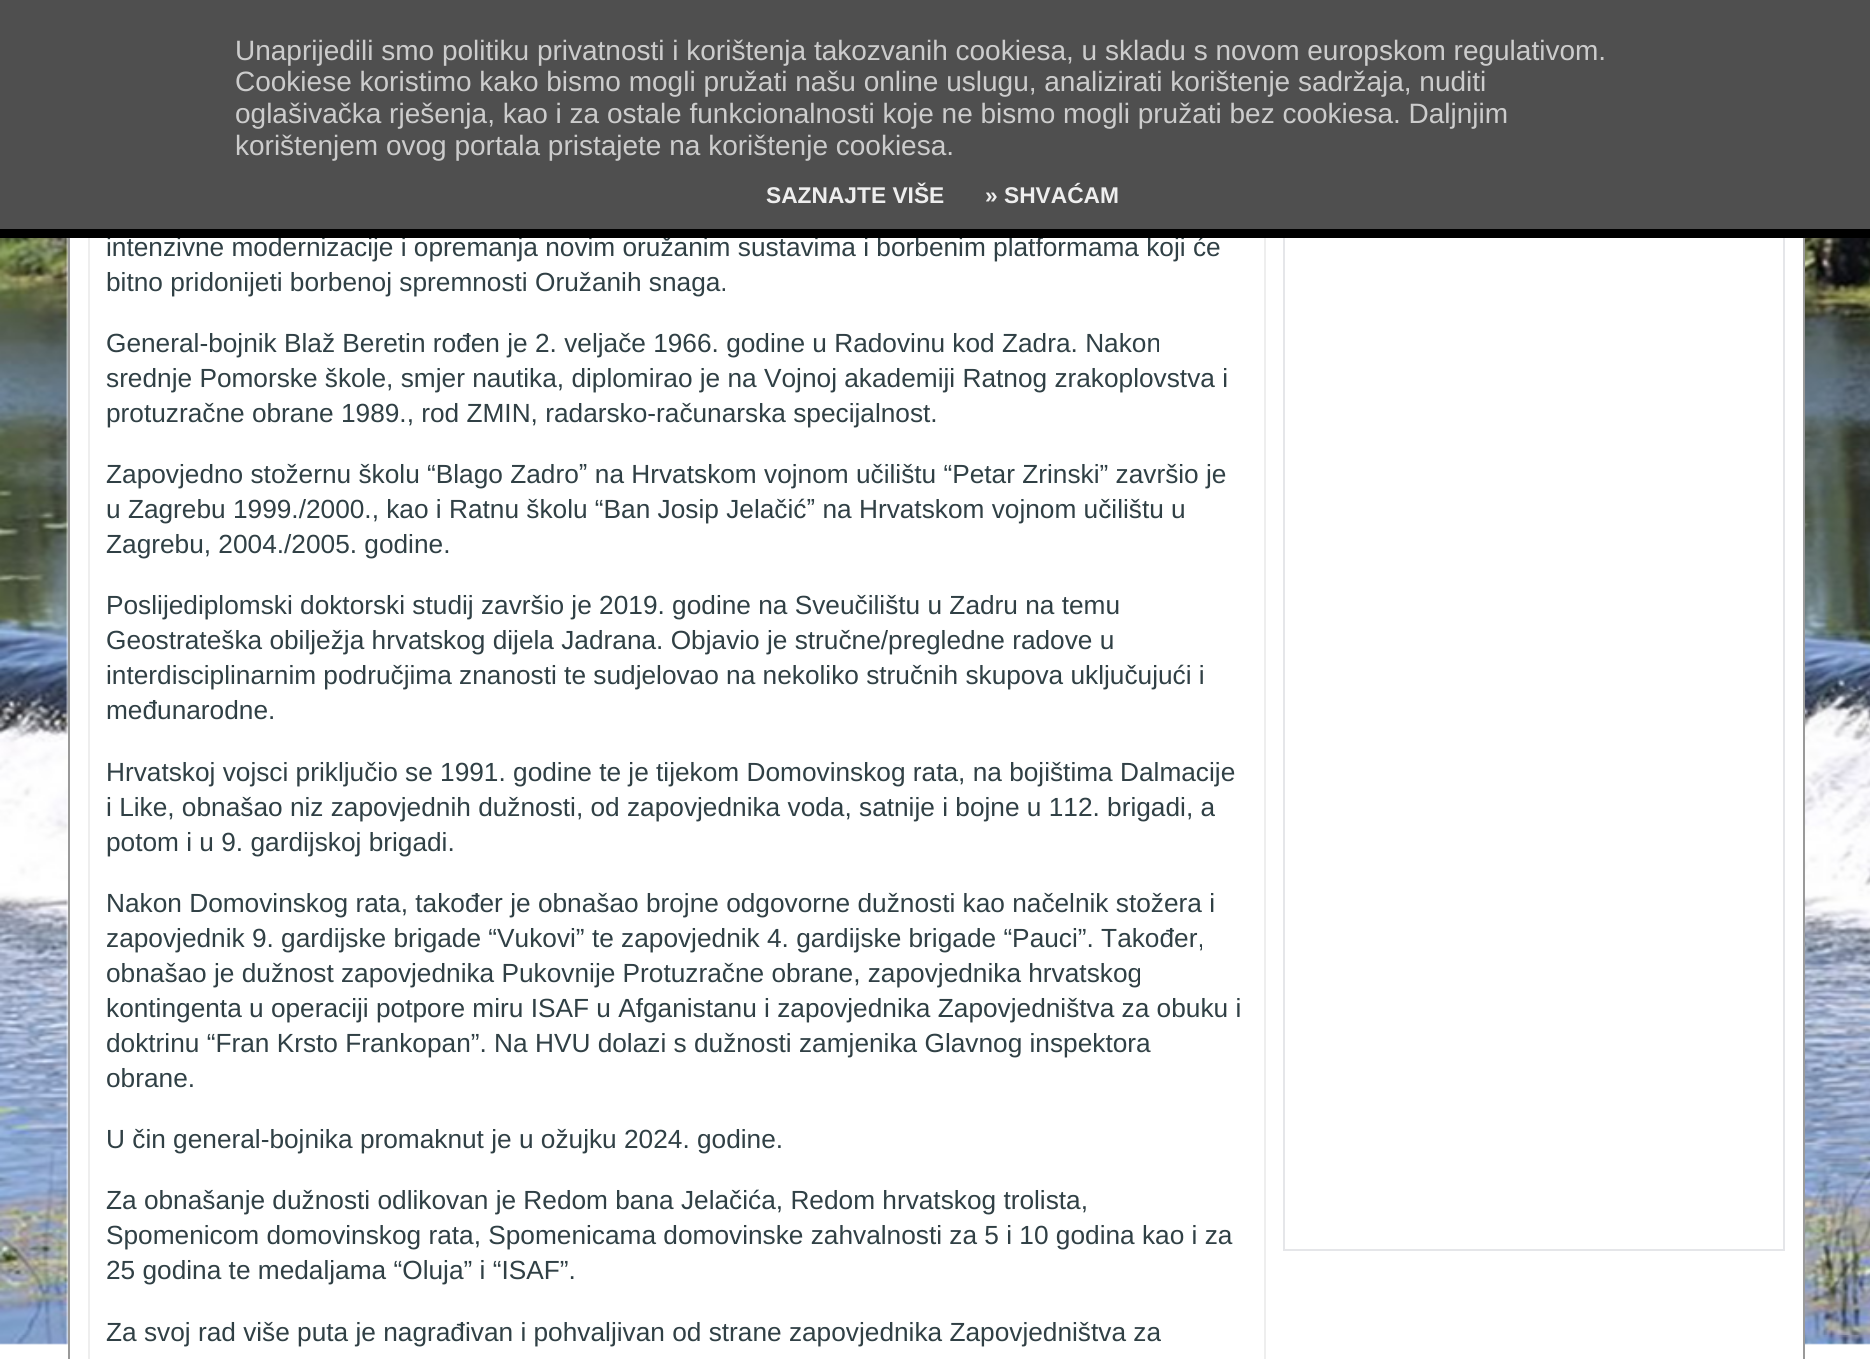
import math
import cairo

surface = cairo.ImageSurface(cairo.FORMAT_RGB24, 1870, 1359)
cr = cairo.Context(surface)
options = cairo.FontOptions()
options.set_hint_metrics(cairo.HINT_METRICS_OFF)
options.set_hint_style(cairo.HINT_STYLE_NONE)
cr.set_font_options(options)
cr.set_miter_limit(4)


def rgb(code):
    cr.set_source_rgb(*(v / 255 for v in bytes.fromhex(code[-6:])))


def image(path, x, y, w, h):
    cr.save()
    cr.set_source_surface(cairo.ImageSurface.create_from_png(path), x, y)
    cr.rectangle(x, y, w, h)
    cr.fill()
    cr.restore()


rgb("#ffffff")
cr.paint()
image("img/1.png", 0, 238, 1870, 1107)
cr.rectangle(1284, -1, 500, 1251)
rgb("#e5e6e9")
cr.stroke()
for x, y, w, h, color in [
    (0, 0, 1870, 229, "#4f4f4f"),
    (1802, 238, 1, 1107, "#ffffff"),
    (1803, 238, 2, 1121, "#999999"),
    (68, 238, 2, 1121, "#999999"),
    (1264, 238, 2, 1121, "#eeeeee"),
    (88, 238, 2, 1121, "#eeeeee"),
]:
    rgb(color)
    cr.rectangle(x, y, w, h)
    cr.fill()
cr.select_font_face("Liberation Sans")
cr.set_font_size(28)
rgb("#cccccc")
for x, y, s in [
    (235, 60, "Unaprijedili smo politiku privatnosti i korištenja takozvanih cookiesa, u skladu s novom europskom regulativom."),
    (235, 91, "Cookiese koristimo kako bismo mogli pružati našu online uslugu, analizirati korištenje sadržaja, nuditi"),
    (235, 123, "oglašivačka rješenja, kao i za ostale funkcionalnosti koje ne bismo mogli pružati bez cookiesa. Daljnjim"),
    (235, 155, "korištenjem ovog portala pristajete na korištenje cookiesa."),
]:
    cr.move_to(x, y)
    cr.show_text(s)
cr.select_font_face("Liberation Sans", cairo.FONT_SLANT_NORMAL, cairo.FONT_WEIGHT_BOLD)
cr.set_font_size(22.75)
rgb("#eeeeee")
cr.move_to(766, 203)
cr.show_text("SAZNAJTE VIŠE")
cr.move_to(985, 203)
cr.show_text("» SHVAĆAM")
cr.select_font_face("Liberation Sans")
cr.set_font_size(26.25)
rgb("#304045")
cr.move_to(106, 256)
cr.show_text("intenzivne modernizacije i opremanja novim oružanim sustavima i borbenim platformama koji će")
rgb("#000000")
cr.rectangle(0, 229, 1870, 9)
cr.fill()
rgb("#304045")
for x, y, s in [
    (106, 291, "bitno pridonijeti borbenoj spremnosti Oružanih snaga."),
    (106, 352, "General-bojnik Blaž Beretin rođen je 2. veljače 1966. godine u Radovinu kod Zadra. Nakon"),
    (106, 387, "srednje Pomorske škole, smjer nautika, diplomirao je na Vojnoj akademiji Ratnog zrakoplovstva i"),
    (106, 422, "protuzračne obrane 1989., rod ZMIN, radarsko-računarska specijalnost."),
    (106, 483, "Zapovjedno stožernu školu “Blago Zadroˮ na Hrvatskom vojnom učilištu “Petar Zrinski” završio je"),
    (106, 518, "u Zagrebu 1999./2000., kao i Ratnu školu “Ban Josip Jelačićˮ na Hrvatskom vojnom učilištu u"),
    (106, 553, "Zagrebu, 2004./2005. godine."),
    (106, 614, "Poslijediplomski doktorski studij završio je 2019. godine na Sveučilištu u Zadru na temu"),
    (106, 649, "Geostrateška obilježja hrvatskog dijela Jadrana. Objavio je stručne/pregledne radove u"),
    (106, 684, "interdisciplinarnim područjima znanosti te sudjelovao na nekoliko stručnih skupova uključujući i"),
    (106, 719, "međunarodne."),
    (106, 781, "Hrvatskoj vojsci priključio se 1991. godine te je tijekom Domovinskog rata, na bojištima Dalmacije"),
    (106, 816, "i Like, obnašao niz zapovjednih dužnosti, od zapovjednika voda, satnije i bojne u 112. brigadi, a"),
    (106, 851, "potom i u 9. gardijskoj brigadi."),
    (106, 912, "Nakon Domovinskog rata, također je obnašao brojne odgovorne dužnosti kao načelnik stožera i"),
    (106, 947, "zapovjednik 9. gardijske brigade “Vukovi” te zapovjednik 4. gardijske brigade “Pauci”. Također,"),
    (106, 982, "obnašao je dužnost zapovjednika Pukovnije Protuzračne obrane, zapovjednika hrvatskog"),
    (106, 1017, "kontingenta u operaciji potpore miru ISAF u Afganistanu i zapovjednika Zapovjedništva za obuku i"),
    (106, 1052, "doktrinu “Fran Krsto Frankopan”. Na HVU dolazi s dužnosti zamjenika Glavnog inspektora"),
    (106, 1087, "obrane."),
    (106, 1148, "U čin general-bojnika promaknut je u ožujku 2024. godine."),
    (106, 1209, "Za obnašanje dužnosti odlikovan je Redom bana Jelačića, Redom hrvatskog trolista,"),
    (106, 1244, "Spomenicom domovinskog rata, Spomenicama domovinske zahvalnosti za 5 i 10 godina kao i za"),
    (106, 1279, "25 godina te medaljama “Oluja” i “ISAF”."),
    (106, 1341, "Za svoj rad više puta je nagrađivan i pohvaljivan od strane zapovjednika Zapovjedništva za"),
]:
    cr.move_to(x, y)
    cr.show_text(s)
surface.write_to_png("page.png")
